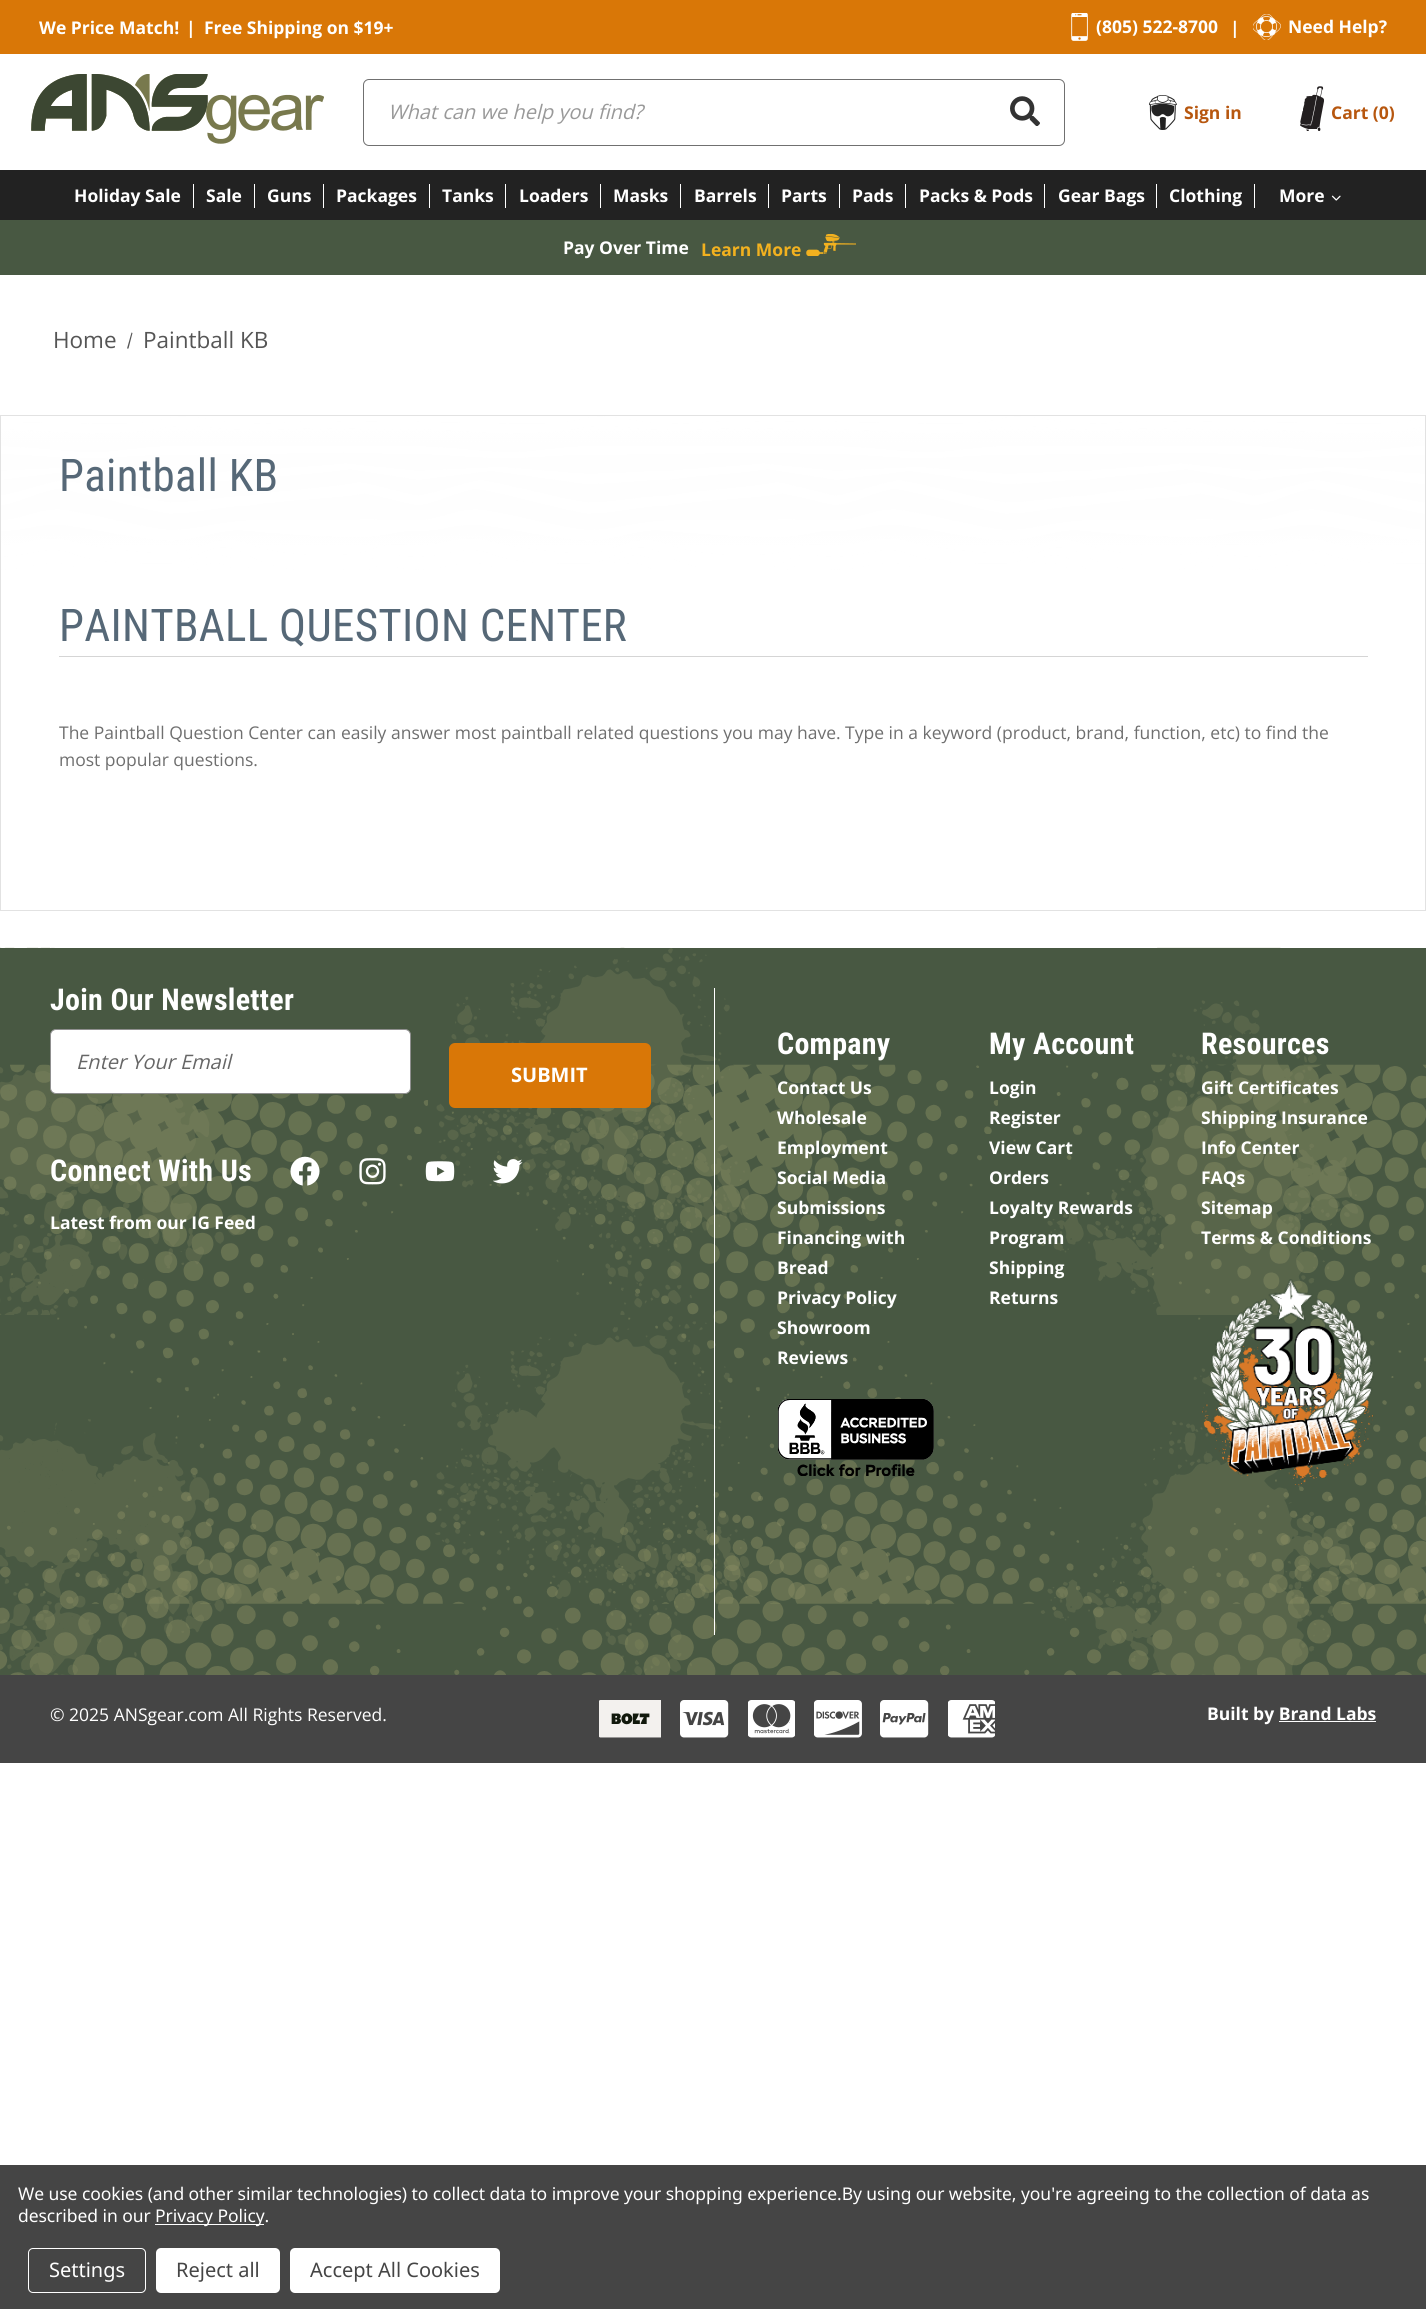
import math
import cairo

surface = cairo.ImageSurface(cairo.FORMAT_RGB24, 1426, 2309)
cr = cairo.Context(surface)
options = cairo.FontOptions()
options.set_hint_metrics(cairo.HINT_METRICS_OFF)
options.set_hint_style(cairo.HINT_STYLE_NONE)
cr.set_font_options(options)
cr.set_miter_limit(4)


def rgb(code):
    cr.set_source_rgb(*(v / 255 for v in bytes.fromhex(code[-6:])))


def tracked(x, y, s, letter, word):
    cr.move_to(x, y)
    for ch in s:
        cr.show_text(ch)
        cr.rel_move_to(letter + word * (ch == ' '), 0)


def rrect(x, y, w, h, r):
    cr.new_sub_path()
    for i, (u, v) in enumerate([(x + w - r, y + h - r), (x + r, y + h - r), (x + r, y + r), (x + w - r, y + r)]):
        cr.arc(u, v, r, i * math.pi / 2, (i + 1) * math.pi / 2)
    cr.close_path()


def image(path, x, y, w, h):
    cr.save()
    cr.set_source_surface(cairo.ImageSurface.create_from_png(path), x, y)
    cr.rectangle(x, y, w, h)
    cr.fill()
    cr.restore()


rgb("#ffffff")
cr.paint()
rgb("#d97707")
cr.rectangle(0, 0, 1426, 54)
cr.fill()
image("img/1.png", 1071, 13, 17, 28)
image("img/2.png", 1253, 14, 28, 26)
image("img/3.png", 31, 74, 293, 70)
rrect(363.5, 79.5, 701, 66, 5.5)
rgb("#707070")
cr.set_line_width(1)
cr.stroke()
image("img/4.png", 1010, 96, 30, 30)
image("img/5.png", 1149, 95, 28, 35)
image("img/6.png", 1300, 86, 24, 45)
for x, y, w, h, color in [
    (0, 170, 1426, 50, "#222222"),
    (193, 184, 1, 24, "#ffffff"),
    (254, 184, 1, 24, "#ffffff"),
    (323, 184, 1, 24, "#ffffff"),
    (429, 184, 1, 24, "#ffffff"),
    (505, 184, 1, 24, "#ffffff"),
    (600, 184, 1, 24, "#ffffff"),
    (680, 184, 1, 24, "#ffffff"),
    (768, 184, 1, 24, "#ffffff"),
    (839, 184, 1, 24, "#ffffff"),
    (905, 184, 1, 24, "#ffffff"),
    (1044, 184, 1, 24, "#ffffff"),
    (1156, 184, 1, 24, "#ffffff"),
    (1254, 184, 1, 24, "#ffffff"),
]:
    rgb(color)
    cr.rectangle(x, y, w, h)
    cr.fill()
image("img/7.png", 1331, 195, 10, 6)
rgb("#485842")
cr.rectangle(0, 220, 1426, 55)
cr.fill()
image("img/8.png", 806, 234, 50, 22)
image("img/9.png", 1, 416, 1424, 154)
rgb("#555555")
cr.new_path()
cr.move_to(131.5, 332.5)
cr.line_to(132.5, 333)
cr.line_to(128.5, 348.5)
cr.line_to(127, 348.5)
cr.close_path()
cr.fill()
cr.rectangle(0.5, 415.5, 1425, 495)
rgb("#e2e2e2")
cr.stroke()
rgb("#d5d5d5")
cr.rectangle(59, 656, 1309, 1)
cr.fill()
rgb("#485842")
cr.rectangle(0, 948, 1426, 727)
cr.fill()
image("img/10.png", 0, 947, 1426, 728)
rgb("#ffffff")
rrect(50.5, 1029.5, 360, 64, 5.5)
cr.fill_preserve()
rgb("#8f8f8f")
cr.stroke()
rgb("#d97707")
rrect(449, 1043, 202, 65, 6)
cr.fill()
image("img/11.png", 290, 1156, 30, 30)
image("img/12.png", 359, 1158, 27, 27)
image("img/13.png", 425, 1161, 30, 21)
image("img/14.png", 493, 1159, 30, 25)
rgb("#ffffff")
cr.rectangle(714, 988, 1, 647)
cr.fill()
image("img/15.png", 778, 1399, 156, 77)
image("img/16.png", 1202, 1279, 172, 207)
rgb("#454545")
cr.rectangle(0, 1675, 1426, 88)
cr.fill()
image("img/17.png", 599, 1700, 62, 38)
image("img/18.png", 680, 1700, 49, 38)
image("img/19.png", 748, 1700, 47, 38)
image("img/20.png", 814, 1700, 48, 38)
image("img/21.png", 880, 1700, 49, 38)
image("img/22.png", 948, 1700, 47, 38)
for x, y, w, h, color in [
    (1279, 1721, 97, 1, "#ffffff"),
    (0, 2165, 1426, 144, "#454545"),
    (155, 2224, 109, 1, "#ffffff"),
]:
    rgb(color)
    cr.rectangle(x, y, w, h)
    cr.fill()
rrect(28.5, 2248.5, 117, 44, 4.5)
cr.stroke()
rrect(156, 2248, 124, 45, 5)
cr.fill()
rrect(290, 2248, 210, 45, 5)
cr.fill()
cr.select_font_face("Open Sans", cairo.FONT_SLANT_NORMAL, cairo.FONT_WEIGHT_BOLD)
cr.set_font_size(17.5)
for x, y, s in [
    (39, 34, "We Price Match!"),
    (186, 34, "|"),
    (204, 34, "Free Shipping on $19+"),
    (1096, 33, "(805) 522-8700"),
    (1230, 34, "|"),
    (1288, 33, "Need Help?"),
]:
    cr.move_to(x, y)
    cr.show_text(s)
cr.select_font_face("Open Sans", cairo.FONT_SLANT_ITALIC)
cr.set_font_size(20)
rgb("#999999")
cr.move_to(388, 119)
cr.show_text("What can we help you find?")
cr.select_font_face("Open Sans", cairo.FONT_SLANT_NORMAL, cairo.FONT_WEIGHT_BOLD)
cr.set_font_size(17.5)
rgb("#b7570f")
cr.move_to(1184, 119)
cr.show_text("Sign in")
cr.move_to(1331, 119)
cr.show_text("Cart (0)")
rgb("#ffffff")
for x, y, s in [
    (74, 202, "Holiday Sale"),
    (206, 202, "Sale"),
    (267, 202, "Guns"),
    (336, 202, "Packages"),
    (442, 202, "Tanks"),
    (519, 202, "Loaders"),
    (613, 202, "Masks"),
    (694, 202, "Barrels"),
    (781, 202, "Parts"),
    (852, 202, "Pads"),
    (919, 202, "Packs & Pods"),
    (1058, 202, "Gear Bags"),
    (1169, 202, "Clothing"),
    (1279, 202, "More"),
    (563, 254, "Pay Over Time"),
]:
    cr.move_to(x, y)
    cr.show_text(s)
rgb("#f2b11f")
cr.move_to(701, 256)
cr.show_text("Learn More")
cr.select_font_face("Open Sans")
cr.set_font_size(22.5)
rgb("#555555")
cr.move_to(53, 348)
cr.show_text("Home")
cr.move_to(143, 348)
cr.show_text("Paintball KB")
cr.select_font_face("Roboto Condensed")
cr.set_font_size(45)
rgb("#566877")
tracked(59, 491, "Paintball KB", 0.3, 0)
tracked(59, 641, "PAINTBALL QUESTION CENTER", 0.3, 0)
cr.select_font_face("Open Sans")
cr.set_font_size(17.5)
rgb("#6f6f6f")
cr.move_to(59, 739)
cr.show_text("The Paintball Question Center can easily answer most paintball related questions you may have. Type in a keyword (product, brand, function, etc) to find the")
cr.move_to(59, 766)
cr.show_text("most popular questions.")
cr.select_font_face("Roboto Condensed", cairo.FONT_SLANT_NORMAL, cairo.FONT_WEIGHT_BOLD)
cr.set_font_size(30)
rgb("#ffffff")
tracked(50, 1010, "Join Our Newsletter", 0.3, 0)
cr.select_font_face("Open Sans", cairo.FONT_SLANT_ITALIC)
cr.set_font_size(20)
rgb("#666666")
cr.move_to(76, 1069)
cr.show_text("Enter Your Email")
cr.select_font_face("Open Sans", cairo.FONT_SLANT_NORMAL, cairo.FONT_WEIGHT_BOLD)
rgb("#ffffff")
cr.move_to(511, 1082)
cr.show_text("SUBMIT")
cr.select_font_face("Roboto Condensed", cairo.FONT_SLANT_NORMAL, cairo.FONT_WEIGHT_BOLD)
cr.set_font_size(30)
tracked(50, 1181, "Connect With Us", 0.3, 0)
cr.select_font_face("Open Sans", cairo.FONT_SLANT_NORMAL, cairo.FONT_WEIGHT_BOLD)
cr.set_font_size(17.5)
cr.move_to(50, 1229)
cr.show_text("Latest from our IG Feed")
cr.select_font_face("Roboto Condensed", cairo.FONT_SLANT_NORMAL, cairo.FONT_WEIGHT_BOLD)
cr.set_font_size(30)
tracked(777, 1054, "Company", 0.3, 0)
cr.select_font_face("Open Sans", cairo.FONT_SLANT_NORMAL, cairo.FONT_WEIGHT_BOLD)
cr.set_font_size(17.5)
for x, y, s in [
    (777, 1094, "Contact Us"),
    (777, 1124, "Wholesale"),
    (777, 1154, "Employment"),
    (777, 1184, "Social Media"),
    (777, 1214, "Submissions"),
    (777, 1244, "Financing with"),
    (777, 1274, "Bread"),
    (777, 1304, "Privacy Policy"),
    (777, 1334, "Showroom"),
    (777, 1364, "Reviews"),
]:
    cr.move_to(x, y)
    cr.show_text(s)
cr.select_font_face("Roboto Condensed", cairo.FONT_SLANT_NORMAL, cairo.FONT_WEIGHT_BOLD)
cr.set_font_size(30)
tracked(989, 1054, "My Account", 0.3, 0)
cr.select_font_face("Open Sans", cairo.FONT_SLANT_NORMAL, cairo.FONT_WEIGHT_BOLD)
cr.set_font_size(17.5)
for x, y, s in [
    (989, 1094, "Login"),
    (989, 1124, "Register"),
    (989, 1154, "View Cart"),
    (989, 1184, "Orders"),
    (989, 1214, "Loyalty Rewards"),
    (989, 1244, "Program"),
    (989, 1274, "Shipping"),
    (989, 1304, "Returns"),
]:
    cr.move_to(x, y)
    cr.show_text(s)
cr.select_font_face("Roboto Condensed", cairo.FONT_SLANT_NORMAL, cairo.FONT_WEIGHT_BOLD)
cr.set_font_size(30)
tracked(1201, 1054, "Resources", 0.3, 0)
cr.select_font_face("Open Sans", cairo.FONT_SLANT_NORMAL, cairo.FONT_WEIGHT_BOLD)
cr.set_font_size(17.5)
for x, y, s in [
    (1201, 1094, "Gift Certificates"),
    (1201, 1124, "Shipping Insurance"),
    (1201, 1154, "Info Center"),
    (1201, 1184, "FAQs"),
    (1201, 1214, "Sitemap"),
    (1201, 1244, "Terms & Conditions"),
]:
    cr.move_to(x, y)
    cr.show_text(s)
cr.select_font_face("Open Sans")
cr.move_to(50, 1721)
cr.show_text("© 2025 ANSgear.com All Rights Reserved.")
cr.select_font_face("Open Sans", cairo.FONT_SLANT_NORMAL, cairo.FONT_WEIGHT_BOLD)
cr.move_to(1207, 1720)
cr.show_text("Built by Brand Labs")
cr.select_font_face("Noto Sans")
for x, y, s in [
    (18, 2200, "We use cookies (and other similar technologies) to collect data to improve your shopping experience.By using our website, you're agreeing to the collection of data as"),
    (18, 2222, "described in our"),
    (155, 2222, "Privacy Policy."),
]:
    tracked(x, y, s, -0.06, 0)
cr.set_font_size(20)
cr.move_to(49, 2277)
cr.show_text("Settings")
rgb("#454545")
cr.move_to(176, 2277)
cr.show_text("Reject all")
cr.move_to(310, 2277)
cr.show_text("Accept All Cookies")
surface.write_to_png("page.png")
